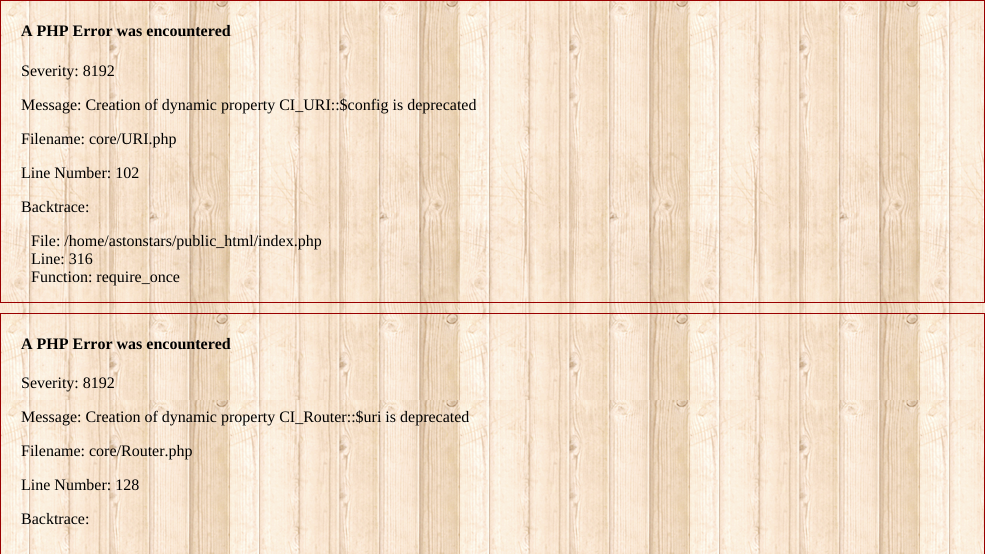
import math
import cairo

surface = cairo.ImageSurface(cairo.FORMAT_RGB24, 985, 554)
cr = cairo.Context(surface)
options = cairo.FontOptions()
options.set_hint_metrics(cairo.HINT_METRICS_OFF)
options.set_hint_style(cairo.HINT_STYLE_NONE)
cr.set_font_options(options)
cr.set_miter_limit(4)


def rgb(code):
    cr.set_source_rgb(*(v / 255 for v in bytes.fromhex(code[-6:])))


def image(path, x, y, w, h):
    cr.save()
    cr.set_source_surface(cairo.ImageSurface.create_from_png(path), x, y)
    cr.rectangle(x, y, w, h)
    cr.fill()
    cr.restore()


rgb("#ffffff")
cr.paint()
image("img/1.png", 0, 1, 985, 553)
cr.rectangle(0.5, 0.5, 984, 302)
rgb("#990000")
cr.set_line_width(1)
cr.stroke()
cr.rectangle(0.5, 313.5, 984, 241)
cr.stroke()
cr.select_font_face("Liberation Serif", cairo.FONT_SLANT_NORMAL, cairo.FONT_WEIGHT_BOLD)
cr.set_font_size(16)
rgb("#000000")
cr.move_to(21, 36)
cr.show_text("A PHP Error was encountered")
cr.select_font_face("Liberation Serif")
for x, y, s in [
    (21, 76, "Severity: 8192"),
    (21, 110, "Message: Creation of dynamic property CI_URI::$config is deprecated"),
    (21, 144, "Filename: core/URI.php"),
    (21, 178, "Line Number: 102"),
    (21, 212, "Backtrace:"),
    (31, 246, "File: /home/astonstars/public_html/index.php"),
    (31, 264, "Line: 316"),
    (31, 282, "Function: require_once"),
]:
    cr.move_to(x, y)
    cr.show_text(s)
cr.select_font_face("Liberation Serif", cairo.FONT_SLANT_NORMAL, cairo.FONT_WEIGHT_BOLD)
cr.move_to(21, 349)
cr.show_text("A PHP Error was encountered")
cr.select_font_face("Liberation Serif")
for x, y, s in [
    (21, 388, "Severity: 8192"),
    (21, 422, "Message: Creation of dynamic property CI_Router::$uri is deprecated"),
    (21, 456, "Filename: core/Router.php"),
    (21, 490, "Line Number: 128"),
    (21, 524, "Backtrace:"),
]:
    cr.move_to(x, y)
    cr.show_text(s)
surface.write_to_png("page.png")
